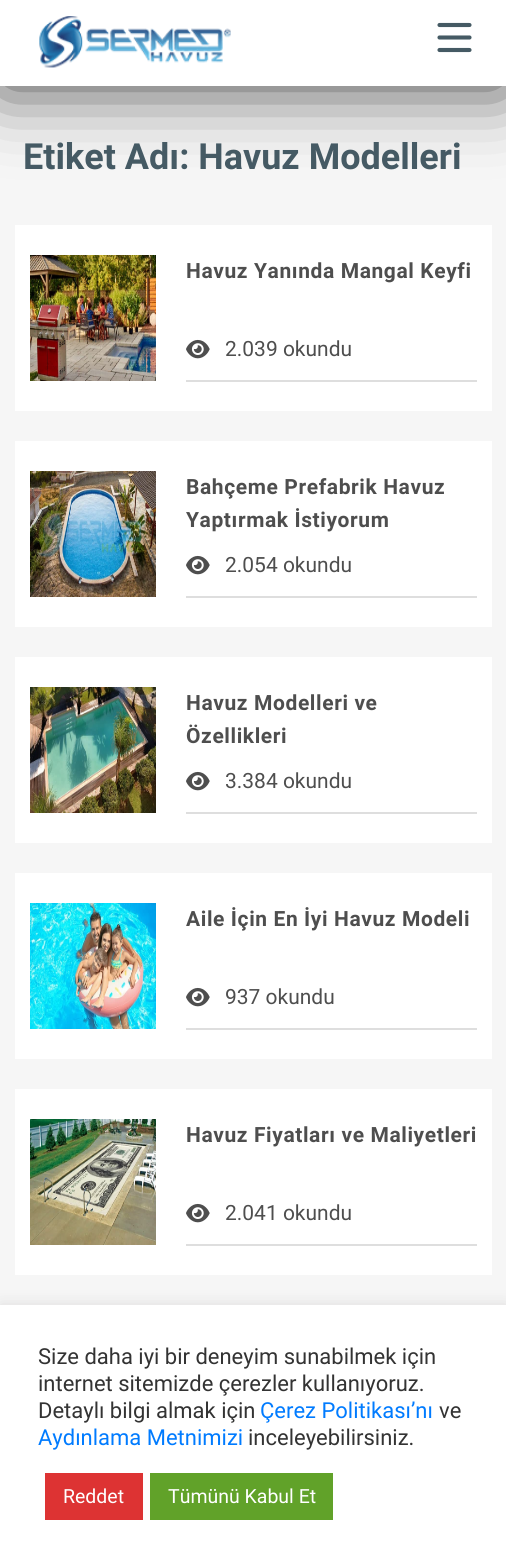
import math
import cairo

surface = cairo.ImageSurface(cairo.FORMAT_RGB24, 506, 1564)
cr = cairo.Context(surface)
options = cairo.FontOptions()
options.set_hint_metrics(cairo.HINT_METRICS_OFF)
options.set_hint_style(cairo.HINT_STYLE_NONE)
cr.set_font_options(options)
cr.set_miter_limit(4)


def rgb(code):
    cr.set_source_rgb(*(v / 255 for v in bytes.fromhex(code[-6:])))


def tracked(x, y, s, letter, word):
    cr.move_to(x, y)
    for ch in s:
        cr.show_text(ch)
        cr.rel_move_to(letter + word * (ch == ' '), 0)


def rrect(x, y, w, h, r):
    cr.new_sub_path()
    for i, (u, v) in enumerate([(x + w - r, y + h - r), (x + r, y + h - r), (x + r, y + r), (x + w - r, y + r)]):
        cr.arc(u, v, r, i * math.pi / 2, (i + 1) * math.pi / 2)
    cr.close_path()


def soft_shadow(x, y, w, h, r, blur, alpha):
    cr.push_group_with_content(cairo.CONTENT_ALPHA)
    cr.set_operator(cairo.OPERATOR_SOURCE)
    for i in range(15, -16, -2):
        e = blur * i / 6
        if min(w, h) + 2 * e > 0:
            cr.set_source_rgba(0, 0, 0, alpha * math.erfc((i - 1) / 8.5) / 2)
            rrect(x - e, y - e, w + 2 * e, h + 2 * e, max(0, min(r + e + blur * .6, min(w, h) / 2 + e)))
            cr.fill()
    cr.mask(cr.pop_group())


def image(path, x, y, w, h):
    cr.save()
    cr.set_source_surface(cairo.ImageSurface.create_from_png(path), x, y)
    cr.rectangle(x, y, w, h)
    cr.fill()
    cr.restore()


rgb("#f6f6f6")
cr.paint()
rgb("#000000")
soft_shadow(0, 0, 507, 86, 0, 37.5, 0.75)
rgb("#ffffff")
cr.rectangle(0, 0, 506, 86)
cr.fill()
image("img/1.png", 39, 16, 192, 52)
cr.new_path()
cr.move_to(469.5, 25)
cr.line_to(439.5, 25)
cr.move_to(439.5, 37.5)
cr.line_to(469.5, 37.5)
cr.move_to(469.5, 50)
cr.line_to(439.5, 50)
rgb("#455a64")
cr.set_line_width(4.1)
cr.set_line_cap(cairo.LINE_CAP_ROUND)
cr.stroke()
rgb("#ffffff")
cr.rectangle(15, 225, 477, 186)
cr.fill()
image("img/2.png", 30, 255, 126, 126)
rgb("#dedede")
cr.rectangle(186, 380, 291, 2)
cr.fill()
image("img/3.png", 186, 339, 24, 20)
rgb("#ffffff")
cr.rectangle(15, 441, 477, 186)
cr.fill()
image("img/4.png", 30, 471, 126, 126)
rgb("#dedede")
cr.rectangle(186, 596, 291, 2)
cr.fill()
image("img/3.png", 186, 555, 24, 20)
rgb("#ffffff")
cr.rectangle(15, 657, 477, 186)
cr.fill()
image("img/5.png", 30, 687, 126, 126)
rgb("#dedede")
cr.rectangle(186, 812, 291, 2)
cr.fill()
image("img/3.png", 186, 771, 24, 20)
rgb("#ffffff")
cr.rectangle(15, 873, 477, 186)
cr.fill()
image("img/6.png", 30, 903, 126, 126)
rgb("#dedede")
cr.rectangle(186, 1028, 291, 2)
cr.fill()
image("img/3.png", 186, 987, 24, 20)
rgb("#ffffff")
cr.rectangle(15, 1089, 477, 186)
cr.fill()
image("img/7.png", 30, 1119, 126, 126)
rgb("#dedede")
cr.rectangle(186, 1244, 291, 2)
cr.fill()
image("img/3.png", 186, 1203, 24, 20)
rgb("#acabab")
soft_shadow(0, 1304, 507, 259, 0, 7.5, 0.3)
for x, y, w, h, color in [
    (0, 1305, 506, 259, "#ffffff"),
    (45, 1473, 98, 47, "#dd3333"),
    (150, 1473, 183, 47, "#61a229"),
]:
    rgb(color)
    cr.rectangle(x, y, w, h)
    cr.fill()
cr.select_font_face("Roboto", cairo.FONT_SLANT_NORMAL, cairo.FONT_WEIGHT_BOLD)
cr.set_font_size(36)
rgb("#455a64")
cr.move_to(23, 169)
cr.show_text("Etiket Adı: Havuz Modelleri")
cr.set_font_size(21)
rgb("#4e4e4e")
tracked(186, 278, "Havuz Yanında Mangal Keyfi", 0.6, 0)
cr.select_font_face("Roboto")
cr.move_to(225, 356)
cr.show_text("2.039 okundu")
cr.select_font_face("Roboto", cairo.FONT_SLANT_NORMAL, cairo.FONT_WEIGHT_BOLD)
tracked(186, 494, "Bahçeme Prefabrik Havuz", 0.6, 0)
tracked(186, 527, "Yaptırmak İstiyorum", 0.6, 0)
cr.select_font_face("Roboto")
cr.move_to(225, 572)
cr.show_text("2.054 okundu")
cr.select_font_face("Roboto", cairo.FONT_SLANT_NORMAL, cairo.FONT_WEIGHT_BOLD)
tracked(186, 710, "Havuz Modelleri ve", 0.6, 0)
tracked(186, 743, "Özellikleri", 0.6, 0)
cr.select_font_face("Roboto")
cr.move_to(225, 788)
cr.show_text("3.384 okundu")
cr.select_font_face("Roboto", cairo.FONT_SLANT_NORMAL, cairo.FONT_WEIGHT_BOLD)
tracked(186, 926, "Aile İçin En İyi Havuz Modeli", 0.6, 0)
cr.select_font_face("Roboto")
cr.move_to(225, 1004)
cr.show_text("937 okundu")
cr.select_font_face("Roboto", cairo.FONT_SLANT_NORMAL, cairo.FONT_WEIGHT_BOLD)
tracked(186, 1142, "Havuz Fiyatları ve Maliyetleri", 0.6, 0)
cr.select_font_face("Roboto")
cr.move_to(225, 1220)
cr.show_text("2.041 okundu")
cr.set_font_size(22)
rgb("#333333")
for x, y, s in [
    (38, 1364, "Size daha iyi bir deneyim sunabilmek için"),
    (38, 1391, "internet sitemizde çerezler kullanıyoruz."),
    (38, 1418, "Detaylı bilgi almak için"),
]:
    cr.move_to(x, y)
    cr.show_text(s)
rgb("#007bff")
cr.move_to(260, 1418)
cr.show_text("Çerez Politikası’nı")
rgb("#333333")
cr.move_to(439, 1418)
cr.show_text("ve")
rgb("#007bff")
cr.move_to(38, 1445)
cr.show_text("Aydınlama Metnimizi")
rgb("#333333")
cr.move_to(248, 1445)
cr.show_text("inceleyebilirsiniz.")
cr.set_font_size(19.5)
rgb("#ffffff")
cr.move_to(63, 1503)
cr.show_text("Reddet")
cr.move_to(168, 1503)
cr.show_text("Tümünü Kabul Et")
surface.write_to_png("page.png")
